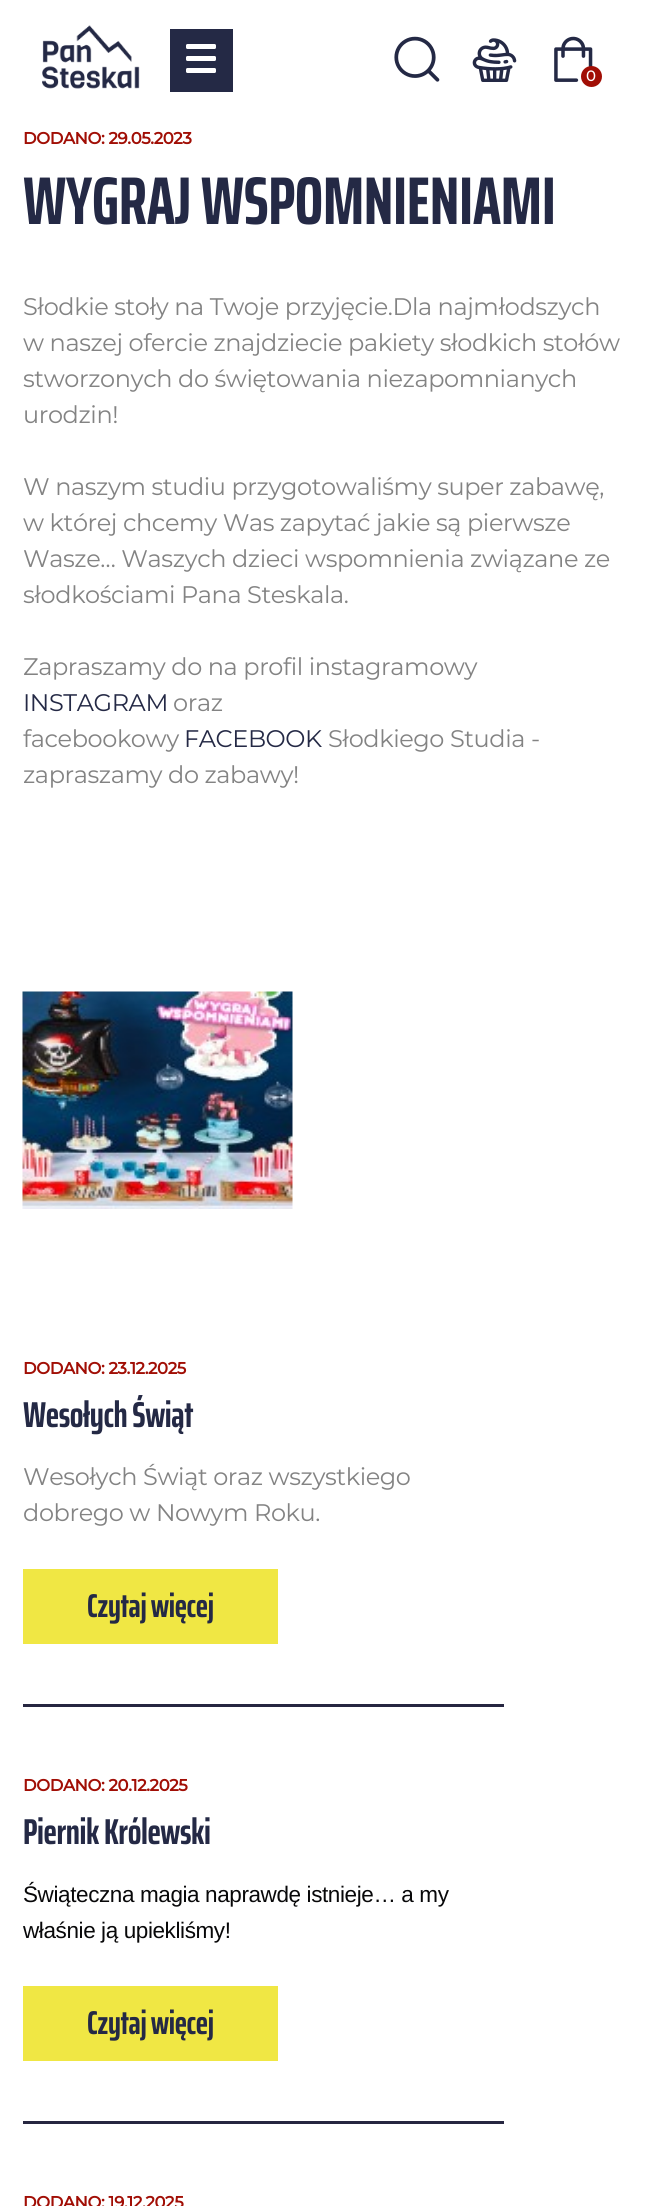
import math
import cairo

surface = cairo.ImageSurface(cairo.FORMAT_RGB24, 646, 2206)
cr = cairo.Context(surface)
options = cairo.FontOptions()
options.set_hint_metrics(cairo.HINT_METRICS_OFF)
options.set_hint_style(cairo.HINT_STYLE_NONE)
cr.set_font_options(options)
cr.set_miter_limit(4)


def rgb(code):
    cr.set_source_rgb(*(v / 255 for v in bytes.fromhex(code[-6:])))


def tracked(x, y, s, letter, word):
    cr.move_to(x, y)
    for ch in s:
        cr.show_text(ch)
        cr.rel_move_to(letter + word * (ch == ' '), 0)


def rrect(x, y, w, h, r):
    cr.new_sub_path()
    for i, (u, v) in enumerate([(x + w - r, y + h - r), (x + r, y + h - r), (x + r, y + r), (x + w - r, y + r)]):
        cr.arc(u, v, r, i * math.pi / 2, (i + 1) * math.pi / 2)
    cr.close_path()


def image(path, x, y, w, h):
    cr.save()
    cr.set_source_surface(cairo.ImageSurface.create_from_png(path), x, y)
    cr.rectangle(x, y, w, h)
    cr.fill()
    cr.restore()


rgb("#ffffff")
cr.paint()
image("img/1.png", 42, 25, 98, 64)
rgb("#242945")
cr.rectangle(170, 29, 63, 63)
cr.fill()
rgb("#ffffff")
rrect(186, 44, 30, 5, 1.5)
cr.fill()
rrect(186, 56, 30, 5, 1.5)
cr.fill()
rrect(186, 68, 30, 5, 1.5)
cr.fill()
image("img/2.png", 394, 36, 46, 46)
image("img/3.png", 472, 38, 45, 44)
image("img/4.png", 554, 36, 39, 46)
rgb("#a10e05")
cr.arc(591.5, 76.5, 10.5, 0, 2 * math.pi)
cr.fill()
image("img/5.png", 22, 991, 271, 218)
for x, y, w, h, color in [
    (23, 1704, 481, 3, "#262640"),
    (23, 1569, 255, 75, "#f0e744"),
    (23, 2121, 481, 3, "#262640"),
    (23, 1986, 255, 75, "#f0e744"),
]:
    rgb(color)
    cr.rectangle(x, y, w, h)
    cr.fill()
cr.select_font_face("Montserrat Medium")
cr.set_font_size(15)
rgb("#ffffff")
tracked(586, 81, "0", -0.4, 0)
cr.select_font_face("Montserrat", cairo.FONT_SLANT_NORMAL, cairo.FONT_WEIGHT_BOLD)
cr.set_font_size(16.5)
rgb("#a10e05")
tracked(23, 144, "DODANO: 29.05.2023", -0.4, 0)
cr.select_font_face("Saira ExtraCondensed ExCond", cairo.FONT_SLANT_NORMAL, cairo.FONT_WEIGHT_BOLD)
cr.set_font_size(67.5)
rgb("#242945")
tracked(23, 224, "WYGRAJ WSPOMNIENIAMI", -0.4, 0)
cr.select_font_face("Montserrat")
cr.set_font_size(24)
rgb("#838383")
for x, y, s in [
    (23, 315, "Słodkie stoły na Twoje przyjęcie.Dla najmłodszych"),
    (23, 351, "w naszej ofercie znajdziecie pakiety słodkich stołów"),
    (23, 387, "stworzonych do świętowania niezapomnianych"),
    (23, 423, "urodzin!"),
    (23, 495, "W naszym studiu przygotowaliśmy super zabawę,"),
    (23, 531, "w której chcemy Was zapytać jakie są pierwsze"),
    (23, 567, "Wasze… Waszych dzieci wspomnienia związane ze"),
    (23, 603, "słodkościami Pana Steskala."),
    (23, 675, "Zapraszamy do na profil instagramowy"),
]:
    tracked(x, y, s, -0.4, 0)
rgb("#242945")
tracked(23, 711, "INSTAGRAM", -0.4, 0)
rgb("#838383")
tracked(173, 711, "oraz", -0.4, 0)
tracked(23, 747, "facebookowy", -0.4, 0)
rgb("#242945")
tracked(184, 747, "FACEBOOK", -0.4, 0)
rgb("#838383")
tracked(328, 747, "Słodkiego Studia -", -0.4, 0)
tracked(23, 783, "zapraszamy do zabawy!", -0.4, 0)
cr.select_font_face("Montserrat", cairo.FONT_SLANT_NORMAL, cairo.FONT_WEIGHT_BOLD)
cr.set_font_size(16.5)
rgb("#a10e05")
tracked(23, 1374, "DODANO: 23.12.2025", -0.4, 0)
cr.select_font_face("Saira ExtraCondensed ExCond", cairo.FONT_SLANT_NORMAL, cairo.FONT_WEIGHT_BOLD)
cr.set_font_size(36)
rgb("#242945")
tracked(23, 1427, "Wesołych Świąt", -0.4, 0)
cr.select_font_face("Montserrat")
cr.set_font_size(24)
rgb("#838383")
tracked(23, 1485, "Wesołych Świąt oraz wszystkiego", -0.4, 0)
tracked(23, 1521, "dobrego w Nowym Roku.", -0.4, 0)
cr.select_font_face("Saira ExtraCondensed ExCond", cairo.FONT_SLANT_NORMAL, cairo.FONT_WEIGHT_BOLD)
cr.set_font_size(33)
rgb("#242945")
tracked(87, 1617, "Czytaj więcej", -0.4, 0)
cr.select_font_face("Montserrat", cairo.FONT_SLANT_NORMAL, cairo.FONT_WEIGHT_BOLD)
cr.set_font_size(16.5)
rgb("#a10e05")
tracked(23, 1791, "DODANO: 20.12.2025", -0.4, 0)
cr.select_font_face("Saira ExtraCondensed ExCond", cairo.FONT_SLANT_NORMAL, cairo.FONT_WEIGHT_BOLD)
cr.set_font_size(36)
rgb("#242945")
tracked(23, 1844, "Piernik Królewski", -0.4, 0)
cr.select_font_face("Liberation Sans")
cr.set_font_size(22.5)
rgb("#080809")
tracked(23, 1902, "Świąteczna magia naprawdę istnieje… a my", -0.4, 0)
tracked(23, 1938, "właśnie ją upiekliśmy!", -0.4, 0)
cr.select_font_face("Saira ExtraCondensed ExCond", cairo.FONT_SLANT_NORMAL, cairo.FONT_WEIGHT_BOLD)
cr.set_font_size(33)
rgb("#242945")
tracked(87, 2034, "Czytaj więcej", -0.4, 0)
cr.select_font_face("Montserrat", cairo.FONT_SLANT_NORMAL, cairo.FONT_WEIGHT_BOLD)
cr.set_font_size(16.5)
rgb("#a10e05")
tracked(23, 2208, "DODANO: 19.12.2025", -0.4, 0)
surface.write_to_png("page.png")
